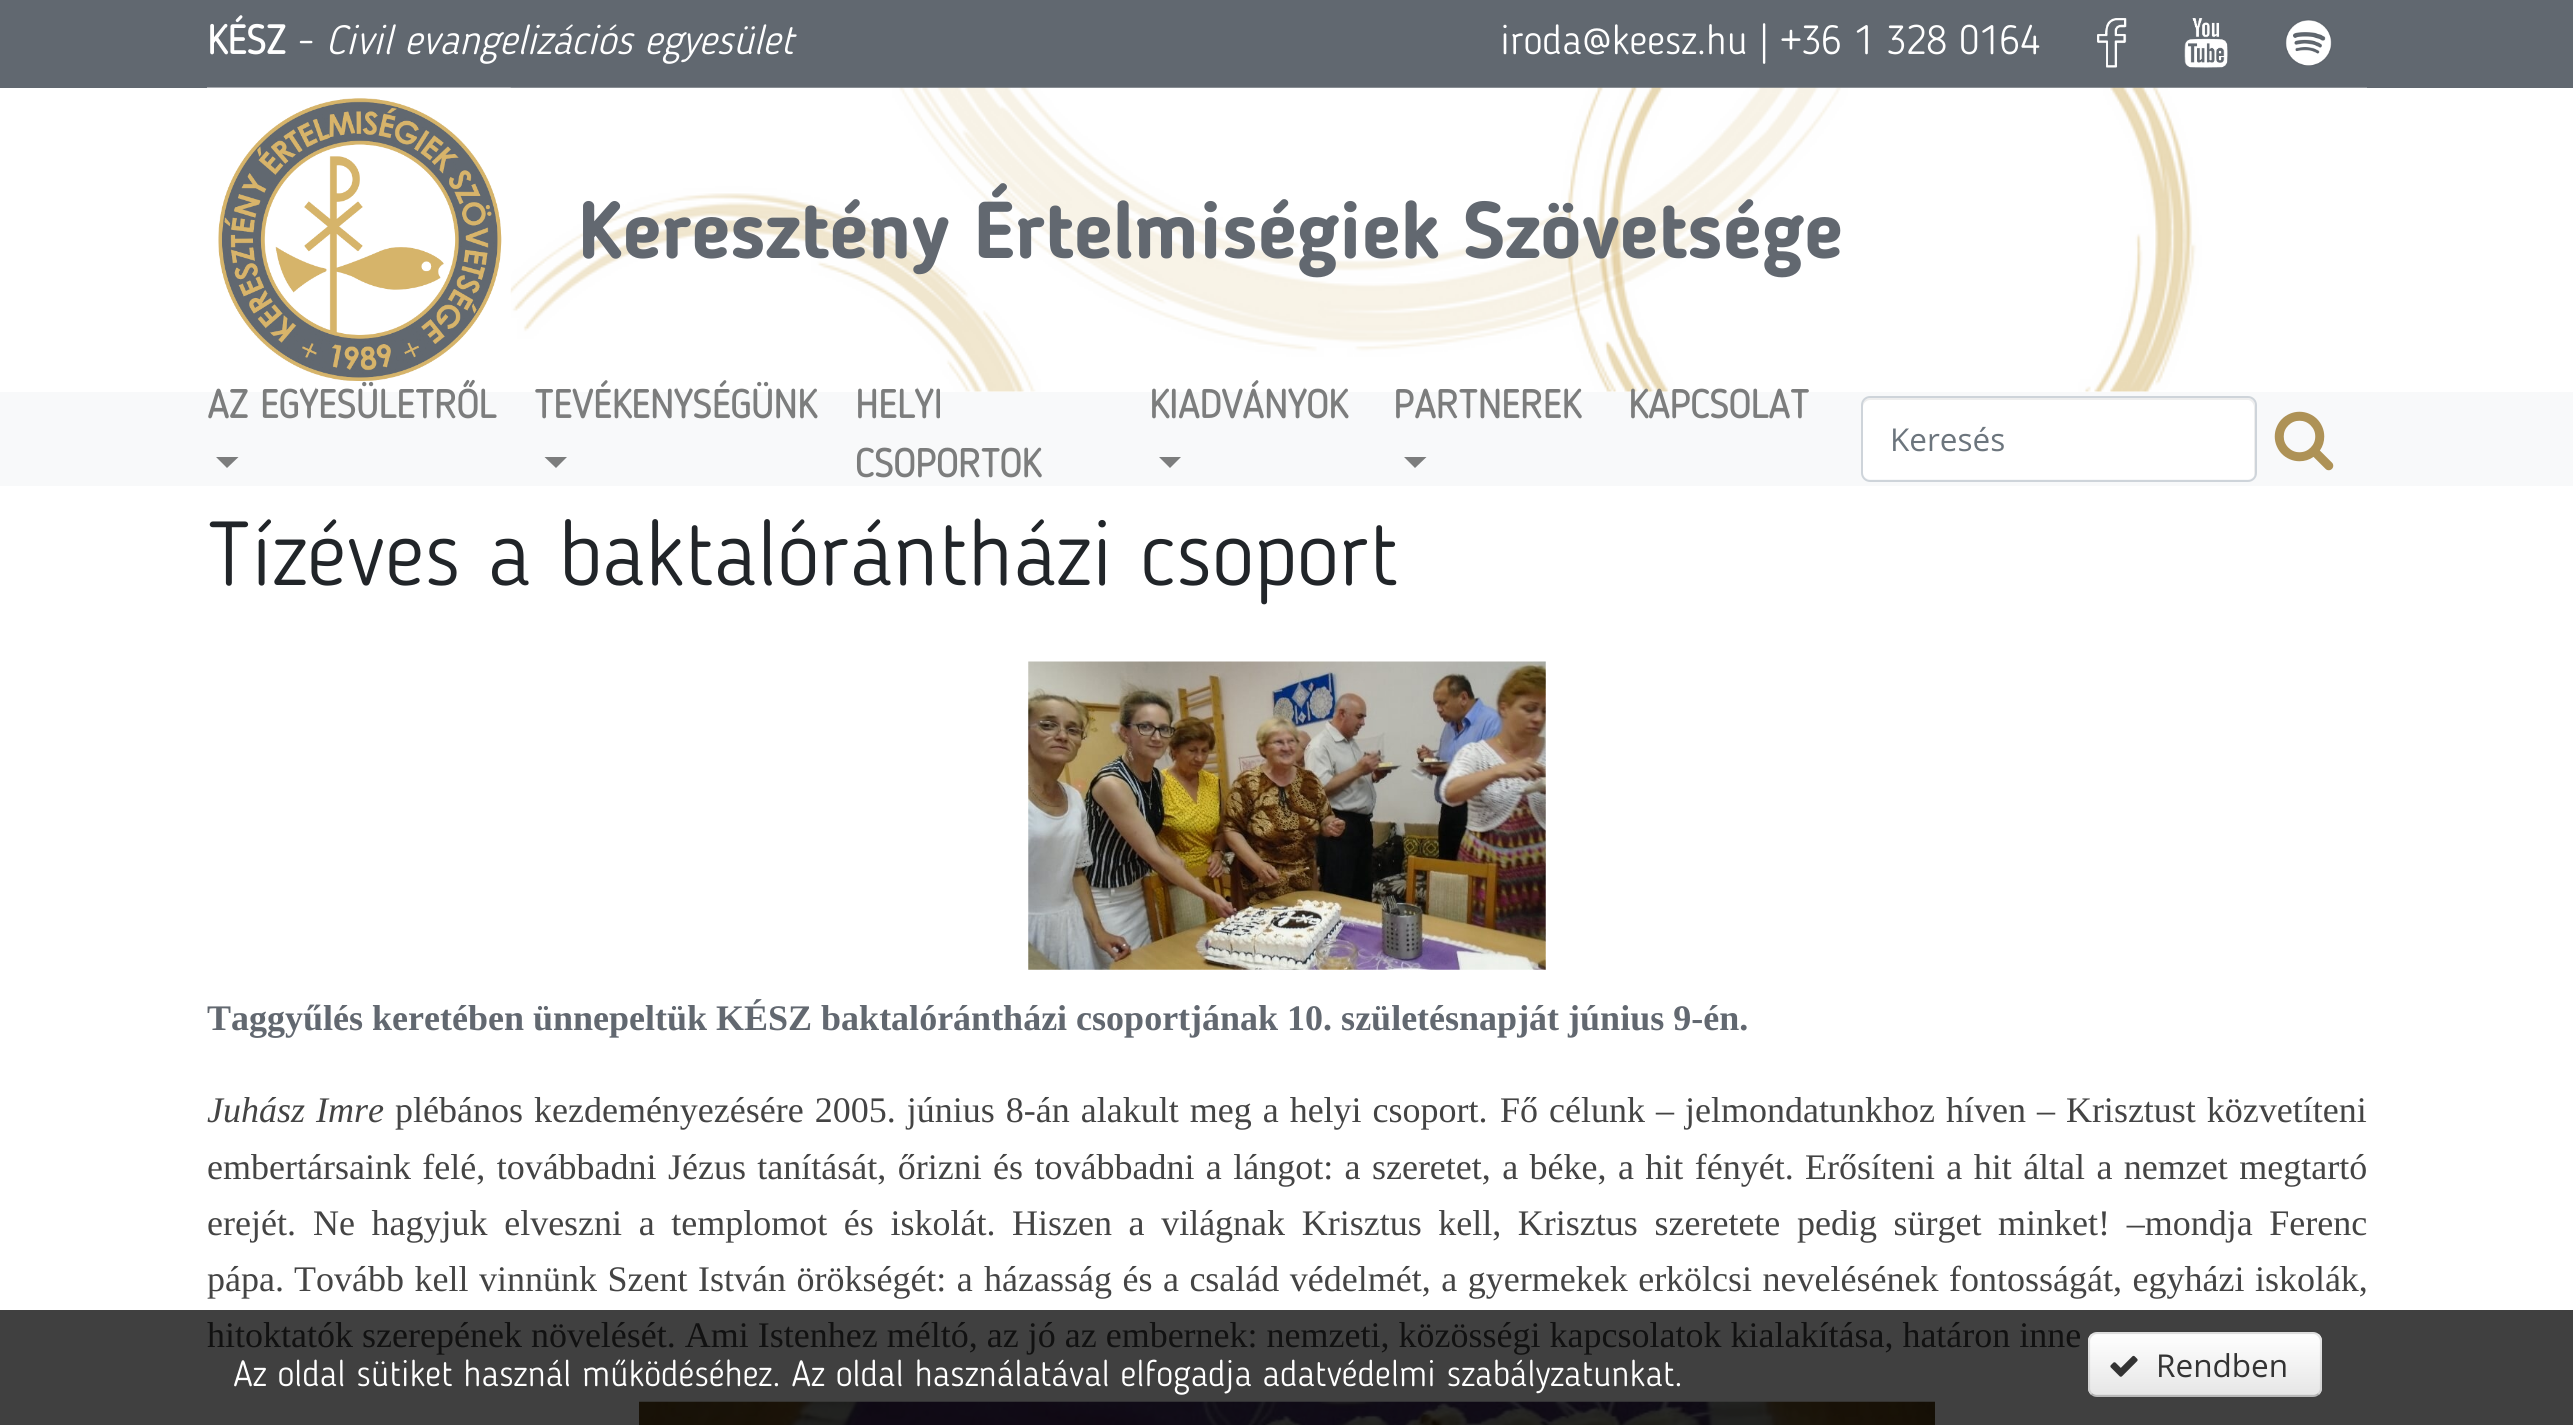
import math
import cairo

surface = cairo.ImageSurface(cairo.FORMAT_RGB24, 2573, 1425)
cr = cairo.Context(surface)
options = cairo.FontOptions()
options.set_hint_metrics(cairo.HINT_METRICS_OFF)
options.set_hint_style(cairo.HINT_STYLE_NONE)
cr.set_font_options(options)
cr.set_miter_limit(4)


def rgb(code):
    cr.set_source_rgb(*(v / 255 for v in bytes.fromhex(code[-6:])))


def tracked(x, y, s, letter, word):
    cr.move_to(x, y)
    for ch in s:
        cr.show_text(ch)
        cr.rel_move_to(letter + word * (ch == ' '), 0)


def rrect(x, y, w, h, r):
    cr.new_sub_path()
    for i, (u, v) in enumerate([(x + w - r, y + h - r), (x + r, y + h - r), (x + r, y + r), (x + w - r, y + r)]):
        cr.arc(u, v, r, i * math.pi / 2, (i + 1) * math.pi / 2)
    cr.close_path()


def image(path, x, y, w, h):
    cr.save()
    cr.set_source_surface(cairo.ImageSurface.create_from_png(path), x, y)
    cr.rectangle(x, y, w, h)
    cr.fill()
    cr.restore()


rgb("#ffffff")
cr.paint()
rgb("#404040")
cr.rectangle(0, 1310, 2573, 115)
cr.fill()
rgb("#616870")
cr.rectangle(0, 0, 2573, 88)
cr.fill()
image("img/1.png", 2097, 18, 30, 50)
image("img/2.png", 2184, 18, 44, 50)
image("img/3.png", 2285, 19, 47, 47)
image("img/4.png", 207, 87, 2160, 305)
image("img/5.png", 207, 87, 304, 305)
rgb("#f8f9fa")
cr.rectangle(0, 392, 2573, 94)
cr.fill()
rgb("#7c7d7d")
cr.new_path()
cr.move_to(216, 457)
cr.line_to(238.5, 457)
cr.line_to(227, 468)
cr.close_path()
cr.fill()
cr.new_path()
cr.move_to(544.5, 457)
cr.line_to(567, 457)
cr.line_to(556, 468)
cr.close_path()
cr.fill()
cr.new_path()
cr.move_to(1159, 457)
cr.line_to(1181, 457)
cr.line_to(1170, 468)
cr.close_path()
cr.fill()
cr.new_path()
cr.move_to(1404, 457)
cr.line_to(1426.5, 457)
cr.line_to(1415, 468)
cr.close_path()
cr.fill()
rgb("#ffffff")
rrect(1863, 398, 392, 81, 7)
cr.fill()
cr.set_source_rgba(0, 0, 0, 0.07)
cr.new_path()
cr.move_to(1870, 400)
cr.line_to(2248, 400)
cr.curve_to(2251, 400, 2254, 404, 2254, 407)
cr.line_to(2254, 476)
cr.curve_to(2255, 475, 2255, 473, 2255, 472)
cr.line_to(2255, 405)
cr.curve_to(2255, 401, 2252, 398, 2248, 398)
cr.line_to(1870, 398)
cr.curve_to(1866, 398, 1863, 401, 1863, 405)
cr.line_to(1863, 407)
cr.curve_to(1863, 404, 1866, 400, 1870, 400)
cr.close_path()
cr.fill()
rrect(1862, 397, 394, 84, 8)
rgb("#ced4da")
cr.stroke()
image("img/6.png", 2274, 411, 60, 60)
image("img/7.png", 1028, 661, 518, 309)
image("img/8.png", 639, 1401, 1296, 24)
rgb("#f5f5f5")
rrect(2088, 1332, 234, 65, 9)
cr.fill()
cr.save()
rrect(2088, 1332, 234, 65, 9)
cr.clip()
gradient = cairo.LinearGradient(2205, 1334, 2205, 1395)
gradient.add_color_stop_rgba(0, 1, 1, 1, 1)
gradient.add_color_stop_rgba(1, 0.902, 0.902, 0.902, 1)
cr.set_source(gradient)
cr.rectangle(2088, 1334, 234, 61)
cr.fill()
cr.restore()
cr.new_path()
cr.move_to(2318.5, 1394)
cr.curve_to(2317, 1395.5, 2315, 1396, 2313, 1396)
cr.line_to(2097, 1396)
cr.curve_to(2095, 1396, 2093, 1395.5, 2091.5, 1394)
cr.set_source_rgba(0, 0, 0, 0.25)
cr.set_line_width(2.2)
cr.stroke()
cr.new_path()
cr.move_to(2091.5, 1394)
cr.curve_to(2090, 1392.5, 2089, 1390.5, 2089, 1388)
cr.line_to(2089, 1341)
cr.curve_to(2089, 1339, 2090, 1337, 2091.5, 1335.5)
cr.curve_to(2093, 1334, 2095, 1333, 2097, 1333)
cr.line_to(2313, 1333)
cr.curve_to(2315, 1333, 2317, 1334, 2318.5, 1335.5)
cr.curve_to(2320, 1337, 2321, 1339, 2321, 1341)
cr.line_to(2321, 1388)
cr.curve_to(2321, 1390.5, 2320, 1392.5, 2318.5, 1394)
cr.set_source_rgba(0, 0, 0, 0.1)
cr.stroke()
image("img/9.png", 2110, 1355, 28, 22)
cr.select_font_face("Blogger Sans", cairo.FONT_SLANT_NORMAL, cairo.FONT_WEIGHT_BOLD)
cr.set_font_size(40.5)
rgb("#ffffff")
cr.move_to(207, 54)
cr.show_text("KÉSZ")
cr.select_font_face("Blogger Sans Light")
cr.move_to(298, 54)
cr.show_text("-")
cr.select_font_face("Blogger Sans Light", cairo.FONT_SLANT_ITALIC)
cr.move_to(326, 54)
cr.show_text("Civil evangelizációs egyesület")
cr.select_font_face("Blogger Sans Light")
cr.move_to(1500, 54)
cr.show_text("iroda@keesz.hu | +36 1 328 0164")
cr.select_font_face("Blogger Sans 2", cairo.FONT_SLANT_NORMAL, cairo.FONT_WEIGHT_BOLD)
cr.set_font_size(79.9)
rgb("#626870")
cr.move_to(578, 258)
cr.show_text("Keresztény Értelmiségiek Szövetsége")
cr.select_font_face("Blogger Sans", cairo.FONT_SLANT_NORMAL, cairo.FONT_WEIGHT_BOLD)
cr.set_font_size(39.5)
rgb("#7c7d7d")
for x, y, s in [
    (207, 418, "AZ EGYESÜLETRŐL"),
    (534, 418, "TEVÉKENYSÉGÜNK"),
    (855, 418, "HELYI"),
    (855, 477, "CSOPORTOK"),
    (1149, 418, "KIADVÁNYOK"),
    (1393, 418, "PARTNEREK"),
    (1628, 418, "KAPCSOLAT"),
]:
    cr.move_to(x, y)
    cr.show_text(s)
cr.select_font_face("Open Sans")
cr.set_font_size(31.5)
rgb("#6c757d")
cr.move_to(1890, 451)
cr.show_text("Keresés")
cr.select_font_face("Blogger Sans Light")
cr.set_font_size(90)
rgb("#212529")
cr.move_to(207, 585)
cr.show_text("Tízéves a baktalórántházi csoport")
cr.select_font_face("Liberation Serif", cairo.FONT_SLANT_NORMAL, cairo.FONT_WEIGHT_BOLD)
cr.set_font_size(36)
rgb("#626870")
cr.move_to(207, 1030)
cr.show_text("Taggyűlés keretében ünnepeltük KÉSZ baktalórántházi csoportjának 10. születésnapját június 9-én.")
cr.select_font_face("Liberation Serif", cairo.FONT_SLANT_ITALIC)
rgb("#444444")
tracked(207, 1122, "Juhász Imre", 0, 2)
cr.select_font_face("Liberation Serif")
tracked(395, 1122, "plébános kezdeményezésére 2005. június 8-án alakult meg a helyi csoport.", 0, 2)
tracked(1500, 1122, "Fő célunk – jelmondatunkhoz híven – Krisztust közvetíteni", 0, 2)
tracked(207, 1179, "embertársaink felé, továbbadni Jézus tanítását, őrizni és továbbadni a lángot: a szeretet, a béke, a hit fényét.", 0, 2.4)
tracked(1805, 1179, "Erősíteni a hit által a nemzet megtartó", 0, 2.4)
cr.move_to(207, 1235)
cr.show_text("erejét.")
tracked(313, 1235, "Ne hagyjuk elveszni a templomot és iskolát.", 0, 7.6)
tracked(1012, 1235, "Hiszen a világnak Krisztus kell, Krisztus szeretete pedig sürget minket! –mondja Ferenc", 0, 7.6)
cr.move_to(207, 1291)
cr.show_text("pápa.")
tracked(294, 1291, "Tovább kell vinnünk Szent István örökségét: a", 0, 1.5)
tracked(984, 1291, "házasság és a család védelmét, a gyermekek erkölcsi nevelésének fontosságát, egyházi iskolák,", 0, 1.5)
rgb("#111111")
cr.move_to(207, 1347)
cr.show_text("hitoktatók szerepének növelését. Ami Istenhez méltó, az jó az embernek: nemzeti, közösségi kapcsolatok kialakítása, határon inne")
cr.select_font_face("Blogger Sans Light")
rgb("#ffffff")
cr.move_to(233, 1386)
cr.show_text("Az oldal sütiket használ működéséhez. Az oldal használatával elfogadja adatvédelmi szabályzatunkat.")
cr.select_font_face("Open Sans")
cr.set_font_size(31.5)
rgb("#333333")
cr.move_to(2156, 1377)
cr.show_text("Rendben")
surface.write_to_png("page.png")
